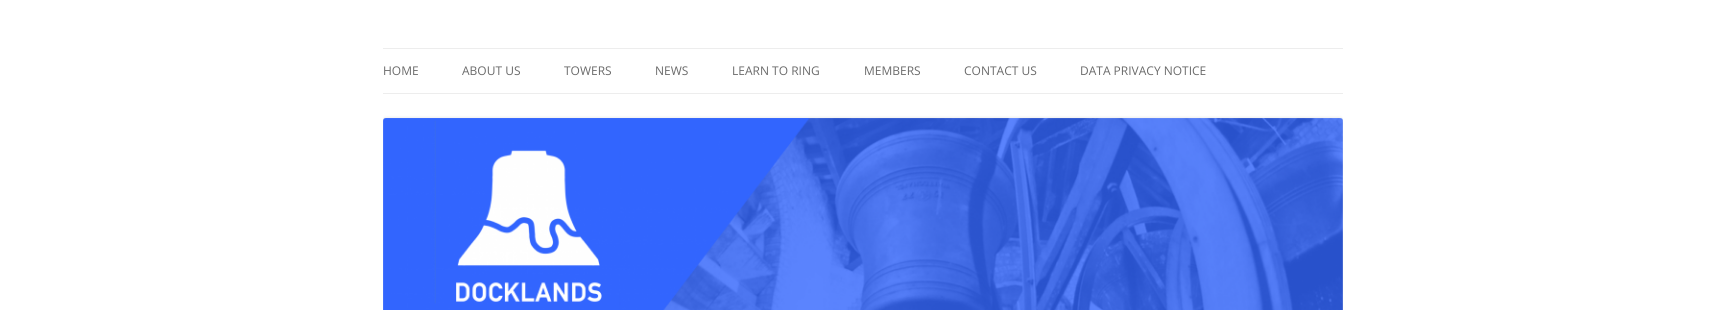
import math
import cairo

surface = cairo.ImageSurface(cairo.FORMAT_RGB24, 1725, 310)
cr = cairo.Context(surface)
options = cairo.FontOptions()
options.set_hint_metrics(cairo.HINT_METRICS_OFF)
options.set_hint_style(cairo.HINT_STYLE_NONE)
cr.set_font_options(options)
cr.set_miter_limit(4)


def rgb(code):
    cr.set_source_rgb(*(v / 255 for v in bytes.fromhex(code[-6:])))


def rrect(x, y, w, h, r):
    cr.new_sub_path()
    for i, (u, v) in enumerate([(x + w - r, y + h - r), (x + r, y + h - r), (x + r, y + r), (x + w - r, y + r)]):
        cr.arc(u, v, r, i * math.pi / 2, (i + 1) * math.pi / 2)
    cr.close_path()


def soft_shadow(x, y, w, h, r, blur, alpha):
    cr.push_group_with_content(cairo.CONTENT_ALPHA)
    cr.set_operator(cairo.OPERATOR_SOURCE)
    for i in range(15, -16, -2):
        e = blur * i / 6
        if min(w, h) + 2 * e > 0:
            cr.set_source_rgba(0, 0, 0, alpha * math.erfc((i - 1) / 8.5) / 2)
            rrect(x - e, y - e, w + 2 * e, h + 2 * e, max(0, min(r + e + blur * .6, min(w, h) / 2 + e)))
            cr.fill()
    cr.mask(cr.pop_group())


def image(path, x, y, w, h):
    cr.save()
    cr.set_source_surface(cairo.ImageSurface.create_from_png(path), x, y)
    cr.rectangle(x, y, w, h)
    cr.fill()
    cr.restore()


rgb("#ffffff")
cr.paint()
rgb("#ededed")
cr.rectangle(383, 48, 960, 1)
cr.fill()
cr.rectangle(383, 93, 960, 1)
cr.fill()
cr.save()
cr.rectangle(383, 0, 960, 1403)
cr.clip()
rgb("#000000")
soft_shadow(383, 119, 960, 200, 3, 2, 0.2)
cr.restore()
image("img/1.png", 383, 118, 960, 192)
cr.select_font_face("Open Sans")
cr.set_font_size(12)
rgb("#6a6a6a")
for x, y, s in [
    (383, 75, "HOME"),
    (462, 75, "ABOUT US"),
    (564, 75, "TOWERS"),
    (655, 75, "NEWS"),
    (732, 75, "LEARN TO RING"),
    (864, 75, "MEMBERS"),
    (964, 75, "CONTACT US"),
    (1080, 75, "DATA PRIVACY NOTICE"),
]:
    cr.move_to(x, y)
    cr.show_text(s)
surface.write_to_png("page.png")
